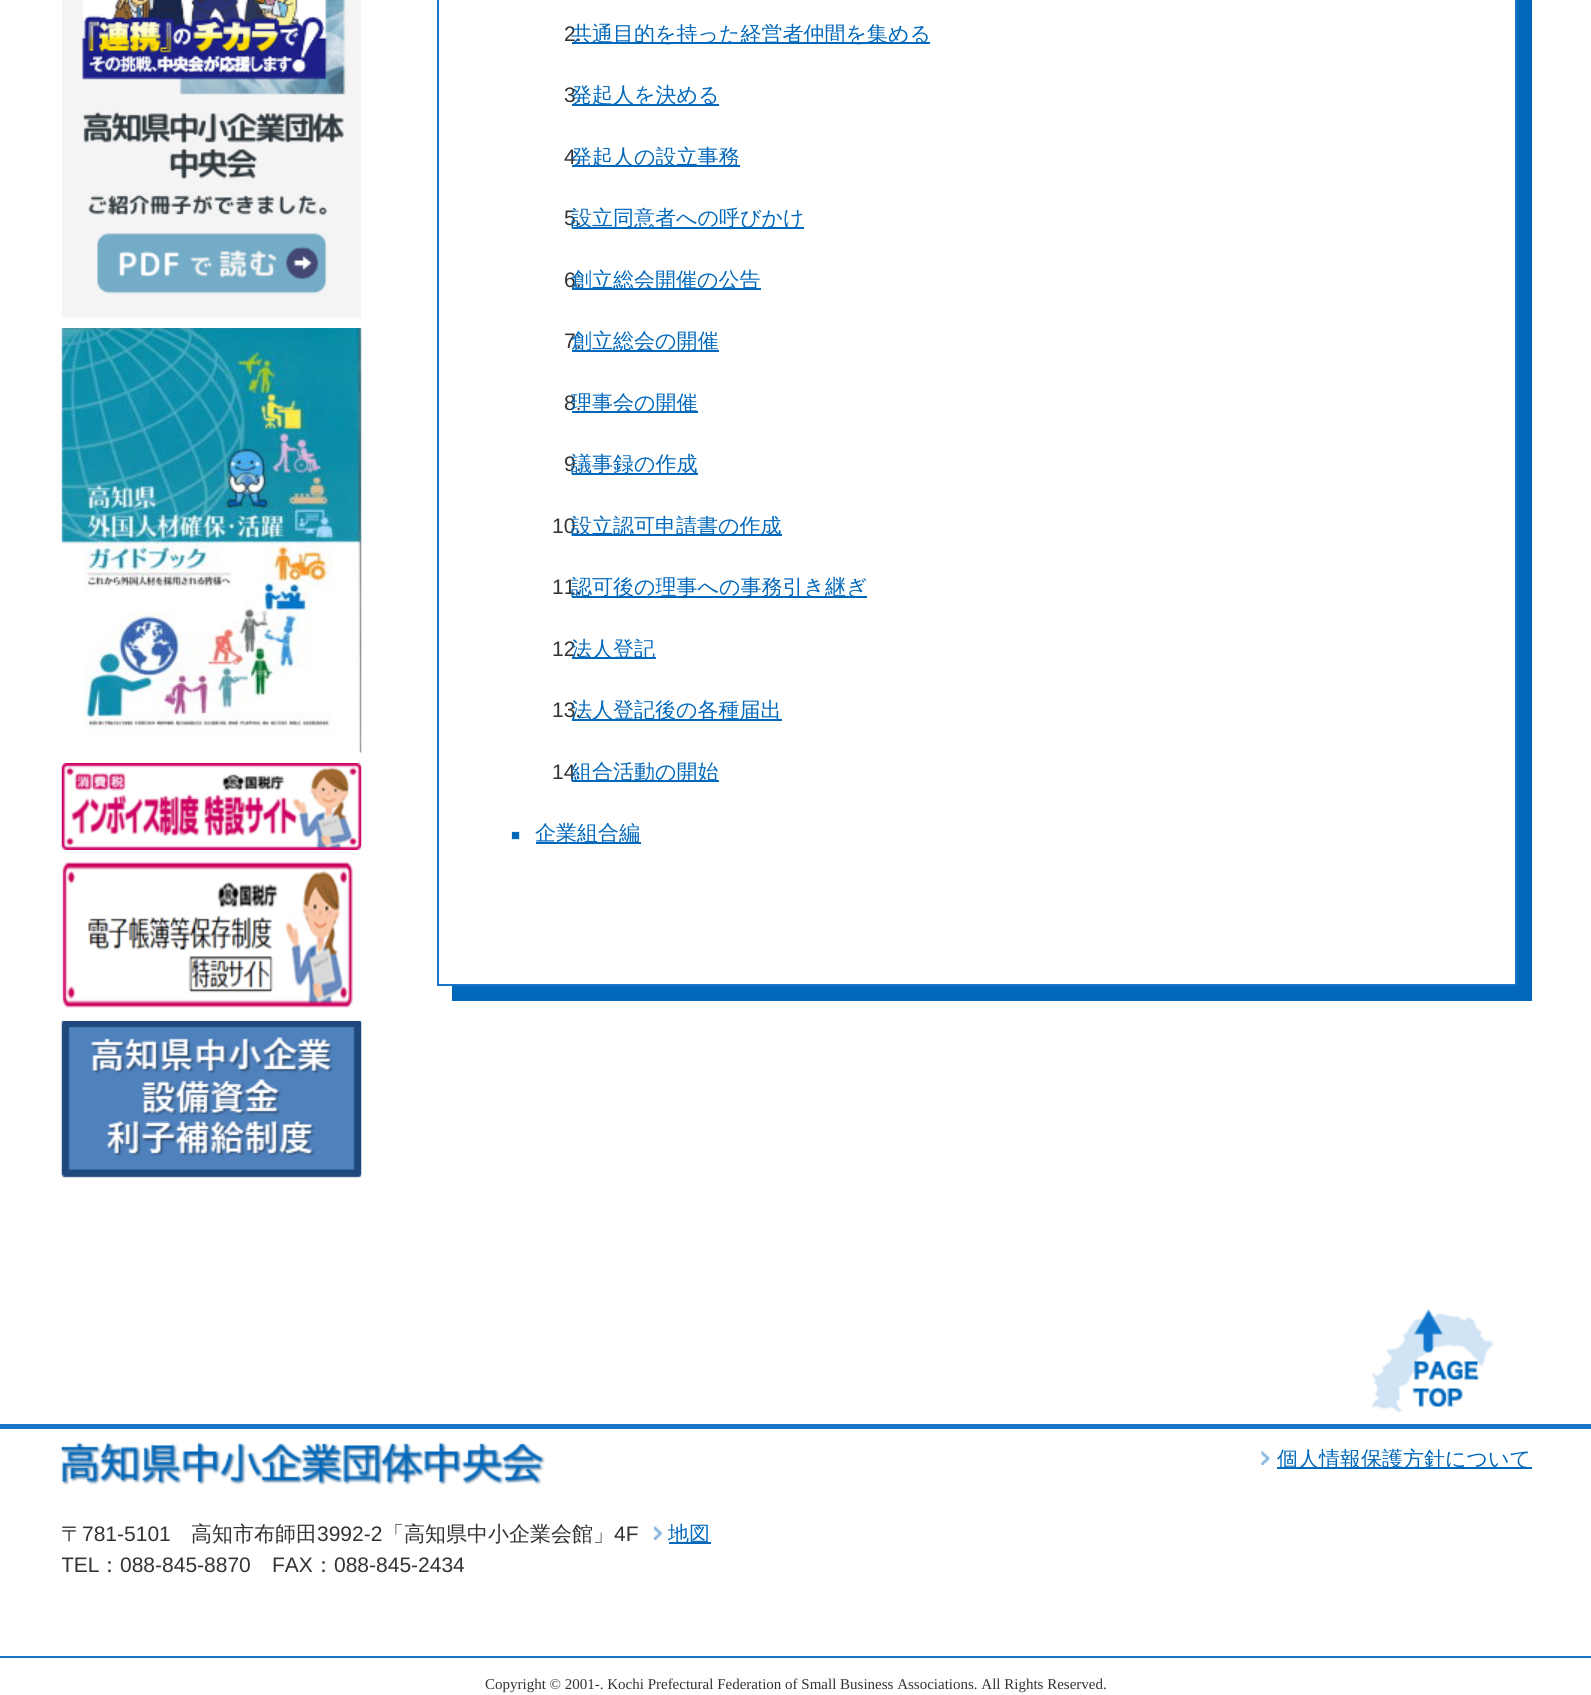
import math
import cairo

surface = cairo.ImageSurface(cairo.FORMAT_RGB24, 1591, 1695)
cr = cairo.Context(surface)
options = cairo.FontOptions()
options.set_hint_metrics(cairo.HINT_METRICS_OFF)
options.set_hint_style(cairo.HINT_STYLE_NONE)
cr.set_font_options(options)
cr.set_miter_limit(4)


def rgb(code):
    cr.set_source_rgb(*(v / 255 for v in bytes.fromhex(code[-6:])))


def image(path, x, y, w, h):
    cr.save()
    cr.set_source_surface(cairo.ImageSurface.create_from_png(path), x, y)
    cr.rectangle(x, y, w, h)
    cr.fill()
    cr.restore()


rgb("#ffffff")
cr.paint()
image("img/1.png", 62, 0, 299, 318)
image("img/2.png", 61, 328, 301, 425)
image("img/3.png", 61, 763, 301, 87)
image("img/4.png", 62, 861, 291, 147)
image("img/5.png", 61, 1021, 301, 157)
rgb("#0268bb")
cr.new_path()
cr.move_to(452, 986)
cr.line_to(452, 1001)
cr.line_to(1532, 1001)
cr.line_to(1532, -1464)
cr.line_to(1516, -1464)
cr.line_to(1516, 986)
cr.close_path()
cr.fill()
cr.rectangle(438, -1, 1078, 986)
rgb("#1875ca")
cr.stroke()
for x, y, w, h, color in [
    (572, 42, 358, 2, "#0268bb"),
    (572, 104, 147, 2, "#0268bb"),
    (572, 165, 168, 2, "#0268bb"),
    (572, 227, 232, 2, "#0268bb"),
    (572, 288, 189, 2, "#0268bb"),
    (572, 350, 147, 2, "#0268bb"),
    (572, 411, 126, 2, "#0268bb"),
    (572, 473, 126, 2, "#0268bb"),
    (572, 534, 210, 2, "#0268bb"),
    (572, 596, 295, 2, "#0268bb"),
    (572, 657, 84, 2, "#0268bb"),
    (572, 719, 210, 2, "#0268bb"),
    (572, 780, 147, 2, "#0268bb"),
    (536, 842, 105, 2, "#0268bb"),
]:
    rgb(color)
    cr.rectangle(x, y, w, h)
    cr.fill()
image("img/6.png", 1371, 1309, 122, 104)
rgb("#1875ca")
cr.rectangle(0, 1424, 1591, 5)
cr.fill()
image("img/7.png", 1261, 1451, 10, 14)
rgb("#0268bb")
cr.rectangle(1277, 1467, 255, 2)
cr.fill()
image("img/8.png", 61, 1442, 484, 44)
image("img/9.png", 654, 1526, 10, 14)
cr.rectangle(669, 1542, 42, 2)
cr.fill()
rgb("#1875ca")
cr.rectangle(0, 1656, 1591, 2)
cr.fill()
cr.select_font_face("Liberation Sans")
cr.set_font_size(21)
rgb("#333333")
cr.move_to(564, 41)
cr.show_text("2.")
cr.select_font_face("WenQuanYi Zen Hei Medium")
rgb("#0268bb")
cr.move_to(571, 41)
cr.show_text("共通目的を持った経営者仲間を集める")
cr.select_font_face("Liberation Sans")
rgb("#333333")
cr.move_to(564, 102)
cr.show_text("3.")
cr.select_font_face("WenQuanYi Zen Hei Medium")
rgb("#0268bb")
cr.move_to(571, 102)
cr.show_text("発起人を決める")
cr.select_font_face("Liberation Sans")
rgb("#333333")
cr.move_to(564, 164)
cr.show_text("4.")
cr.select_font_face("WenQuanYi Zen Hei Medium")
rgb("#0268bb")
cr.move_to(571, 164)
cr.show_text("発起人の設立事務")
cr.select_font_face("Liberation Sans")
rgb("#333333")
cr.move_to(564, 225)
cr.show_text("5.")
cr.select_font_face("WenQuanYi Zen Hei Medium")
rgb("#0268bb")
cr.move_to(571, 225)
cr.show_text("設立同意者への呼びかけ")
cr.select_font_face("Liberation Sans")
rgb("#333333")
cr.move_to(564, 287)
cr.show_text("6.")
cr.select_font_face("WenQuanYi Zen Hei Medium")
rgb("#0268bb")
cr.move_to(571, 287)
cr.show_text("創立総会開催の公告")
cr.select_font_face("Liberation Sans")
rgb("#333333")
cr.move_to(564, 348)
cr.show_text("7.")
cr.select_font_face("WenQuanYi Zen Hei Medium")
rgb("#0268bb")
cr.move_to(571, 348)
cr.show_text("創立総会の開催")
cr.select_font_face("Liberation Sans")
rgb("#333333")
cr.move_to(564, 410)
cr.show_text("8.")
cr.select_font_face("WenQuanYi Zen Hei Medium")
rgb("#0268bb")
cr.move_to(571, 410)
cr.show_text("理事会の開催")
cr.select_font_face("Liberation Sans")
rgb("#333333")
cr.move_to(564, 471)
cr.show_text("9.")
cr.select_font_face("WenQuanYi Zen Hei Medium")
rgb("#0268bb")
cr.move_to(571, 471)
cr.show_text("議事録の作成")
cr.select_font_face("Liberation Sans")
rgb("#333333")
cr.move_to(552, 533)
cr.show_text("10.")
cr.select_font_face("WenQuanYi Zen Hei Medium")
rgb("#0268bb")
cr.move_to(571, 533)
cr.show_text("設立認可申請書の作成")
cr.select_font_face("Liberation Sans")
rgb("#333333")
cr.move_to(552, 594)
cr.show_text("11.")
cr.select_font_face("WenQuanYi Zen Hei Medium")
rgb("#0268bb")
cr.move_to(571, 594)
cr.show_text("認可後の理事への事務引き継ぎ")
cr.select_font_face("Liberation Sans")
rgb("#333333")
cr.move_to(552, 656)
cr.show_text("12.")
cr.select_font_face("WenQuanYi Zen Hei Medium")
rgb("#0268bb")
cr.move_to(571, 656)
cr.show_text("法人登記")
cr.select_font_face("Liberation Sans")
rgb("#333333")
cr.move_to(552, 717)
cr.show_text("13.")
cr.select_font_face("WenQuanYi Zen Hei Medium")
rgb("#0268bb")
cr.move_to(571, 717)
cr.show_text("法人登記後の各種届出")
cr.select_font_face("Liberation Sans")
rgb("#333333")
cr.move_to(552, 779)
cr.show_text("14.")
cr.select_font_face("WenQuanYi Zen Hei Medium")
rgb("#0268bb")
cr.move_to(571, 779)
cr.show_text("組合活動の開始")
cr.select_font_face("Liberation Sans")
cr.set_font_size(15)
cr.move_to(511, 840)
cr.show_text("■")
cr.select_font_face("WenQuanYi Zen Hei Medium")
cr.set_font_size(21)
cr.move_to(535, 840)
cr.show_text("企業組合編")
cr.move_to(1277, 1466)
cr.show_text("個人情報保護方針について")
rgb("#333333")
cr.move_to(61, 1541)
cr.show_text("〒")
cr.select_font_face("Liberation Sans")
cr.move_to(82, 1541)
cr.show_text("781-5101")
cr.select_font_face("WenQuanYi Zen Hei Medium")
cr.move_to(191, 1541)
cr.show_text("高知市布師田")
cr.select_font_face("Liberation Sans")
cr.move_to(317, 1541)
cr.show_text("3992-2")
cr.select_font_face("WenQuanYi Zen Hei Medium")
cr.move_to(383, 1541)
cr.show_text("「高知県中小企業会館」")
cr.select_font_face("Liberation Sans")
cr.move_to(614, 1541)
cr.show_text("4F")
cr.select_font_face("WenQuanYi Zen Hei Medium")
rgb("#0268bb")
cr.move_to(668, 1541)
cr.show_text("地図")
cr.save()
cr.rectangle(62, 1443, 1470, 213)
cr.clip()
cr.select_font_face("Liberation Sans")
rgb("#333333")
cr.move_to(61, 1572)
cr.show_text("TEL")
cr.restore()
rgb("#333333")
cr.move_to(99, 1572)
cr.show_text("：")
cr.select_font_face("Liberation Sans")
cr.move_to(120, 1572)
cr.show_text("088-845-8870")
cr.move_to(272, 1572)
cr.show_text("FAX")
cr.select_font_face("WenQuanYi Zen Hei Medium")
cr.move_to(313, 1572)
cr.show_text("：")
cr.select_font_face("Liberation Sans")
cr.move_to(334, 1572)
cr.show_text("088-845-2434")
cr.select_font_face("Liberation Serif")
cr.set_font_size(15)
cr.move_to(485, 1689)
cr.show_text("Copyright © 2001-. Kochi Prefectural Federation of Small Business Associations. All Rights Reserved.")
surface.write_to_png("page.png")
